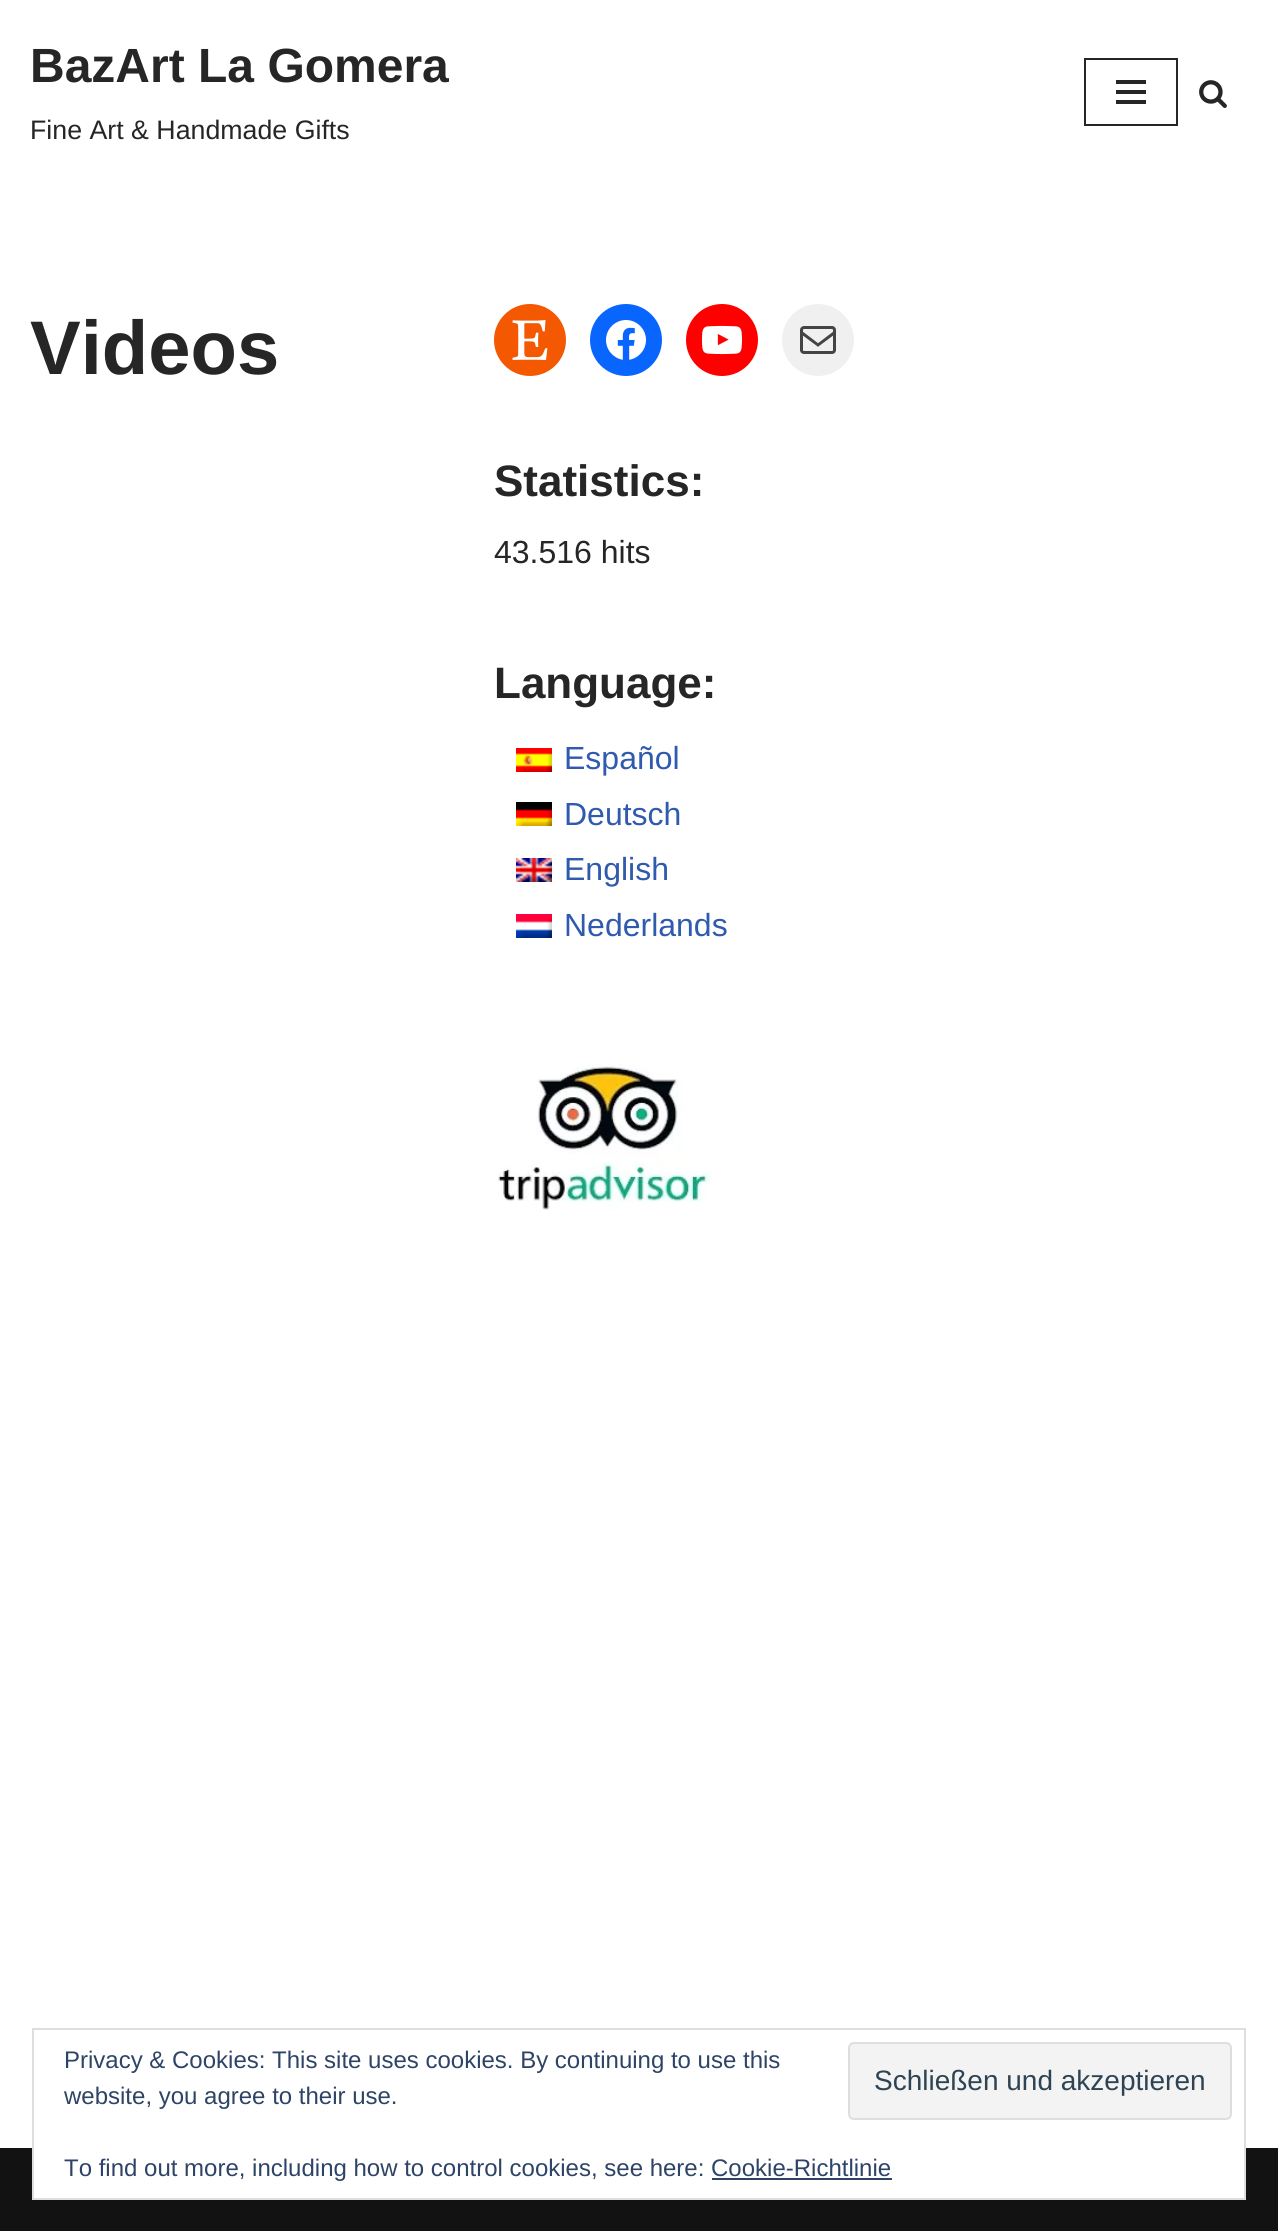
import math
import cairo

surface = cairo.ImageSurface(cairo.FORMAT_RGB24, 1278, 2231)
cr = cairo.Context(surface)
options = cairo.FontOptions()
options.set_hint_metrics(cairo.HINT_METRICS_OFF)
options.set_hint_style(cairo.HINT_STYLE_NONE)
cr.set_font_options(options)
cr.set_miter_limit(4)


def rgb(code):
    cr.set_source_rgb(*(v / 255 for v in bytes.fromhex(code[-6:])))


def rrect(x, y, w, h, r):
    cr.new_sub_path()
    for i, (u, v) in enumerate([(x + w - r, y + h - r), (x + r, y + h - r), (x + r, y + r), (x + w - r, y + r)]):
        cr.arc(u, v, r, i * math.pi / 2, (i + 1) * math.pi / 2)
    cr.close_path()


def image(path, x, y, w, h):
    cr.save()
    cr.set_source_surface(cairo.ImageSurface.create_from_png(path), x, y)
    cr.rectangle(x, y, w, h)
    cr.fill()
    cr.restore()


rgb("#ffffff")
cr.paint()
cr.rectangle(1085, 59, 92, 66)
rgb("#272626")
cr.stroke()
for x, y, w, h, color in [
    (1116, 80, 30, 4, "#272626"),
    (1116, 90, 30, 4, "#272626"),
    (1116, 100, 30, 4, "#272626"),
]:
    rgb(color)
    cr.rectangle(x, y, w, h)
    cr.fill()
image("img/1.png", 1199, 80, 28, 28)
rgb("#f45800")
cr.arc(530, 340, 36, 0, 2 * math.pi)
cr.fill()
image("img/2.png", 512, 320, 36, 40)
rgb("#0866ff")
cr.arc(626, 340, 36, 0, 2 * math.pi)
cr.fill()
image("img/3.png", 606, 320, 40, 40)
rgb("#ff0000")
cr.arc(722, 340, 36, 0, 2 * math.pi)
cr.fill()
image("img/4.png", 702, 325, 40, 30)
rgb("#f0f0f0")
cr.arc(818, 340, 36, 0, 2 * math.pi)
cr.fill()
image("img/5.png", 800, 326, 36, 28)
image("img/6.png", 516, 748, 36, 24)
image("img/7.png", 516, 802, 36, 24)
image("img/8.png", 516, 858, 36, 24)
image("img/9.png", 516, 914, 36, 24)
image("img/10.png", 498, 1064, 213, 146)
rgb("#121212")
cr.rectangle(0, 2148, 1278, 83)
cr.fill()
rgb("#ffffff")
cr.rectangle(34, 2148, 1210, 50)
cr.fill()
cr.rectangle(33, 2029, 1212, 170)
rgb("#dedede")
cr.stroke()
rgb("#f3f3f3")
rrect(849, 2043, 382, 76, 5)
cr.fill_preserve()
rgb("#dedede")
cr.stroke()
rgb("#2e4467")
cr.rectangle(712, 2178, 180, 2)
cr.fill()
cr.select_font_face("Liberation Sans", cairo.FONT_SLANT_NORMAL, cairo.FONT_WEIGHT_BOLD)
cr.set_font_size(48)
rgb("#272626")
cr.move_to(30, 82)
cr.show_text("BazArt La Gomera")
cr.select_font_face("Liberation Sans")
cr.set_font_size(26.75)
cr.move_to(30, 139)
cr.show_text("Fine Art & Handmade Gifts")
cr.select_font_face("Liberation Sans", cairo.FONT_SLANT_NORMAL, cairo.FONT_WEIGHT_BOLD)
cr.set_font_size(76)
cr.move_to(30, 374)
cr.show_text("Videos")
cr.set_font_size(44)
cr.move_to(494, 496)
cr.show_text("Statistics:")
cr.select_font_face("Liberation Sans")
cr.set_font_size(32)
cr.move_to(494, 563)
cr.show_text("43.516 hits")
cr.select_font_face("Liberation Sans", cairo.FONT_SLANT_NORMAL, cairo.FONT_WEIGHT_BOLD)
cr.set_font_size(44)
cr.move_to(494, 698)
cr.show_text("Language:")
cr.select_font_face("Liberation Sans")
cr.set_font_size(32)
rgb("#2f5aae")
for x, y, s in [
    (564, 769, "Español"),
    (564, 825, "Deutsch"),
    (564, 880, "English"),
    (564, 936, "Nederlands"),
]:
    cr.move_to(x, y)
    cr.show_text(s)
cr.set_font_size(24)
rgb("#2e4467")
cr.move_to(64, 2068)
cr.show_text("Privacy & Cookies: This site uses cookies. By continuing to use this")
cr.move_to(64, 2104)
cr.show_text("website, you agree to their use.")
cr.set_font_size(28)
rgb("#2e4453")
cr.move_to(874, 2090)
cr.show_text("Schließen und akzeptieren")
cr.set_font_size(24)
rgb("#2e4467")
cr.move_to(64, 2176)
cr.show_text("To find out more, including how to control cookies, see here: Cookie-Richtlinie")
surface.write_to_png("page.png")
